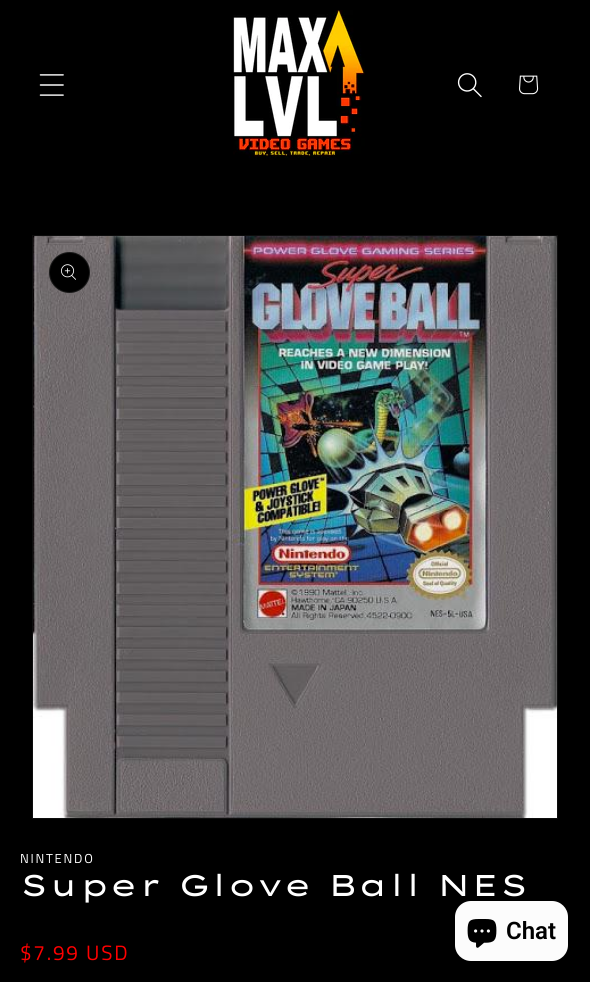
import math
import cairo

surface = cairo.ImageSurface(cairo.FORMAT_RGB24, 590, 982)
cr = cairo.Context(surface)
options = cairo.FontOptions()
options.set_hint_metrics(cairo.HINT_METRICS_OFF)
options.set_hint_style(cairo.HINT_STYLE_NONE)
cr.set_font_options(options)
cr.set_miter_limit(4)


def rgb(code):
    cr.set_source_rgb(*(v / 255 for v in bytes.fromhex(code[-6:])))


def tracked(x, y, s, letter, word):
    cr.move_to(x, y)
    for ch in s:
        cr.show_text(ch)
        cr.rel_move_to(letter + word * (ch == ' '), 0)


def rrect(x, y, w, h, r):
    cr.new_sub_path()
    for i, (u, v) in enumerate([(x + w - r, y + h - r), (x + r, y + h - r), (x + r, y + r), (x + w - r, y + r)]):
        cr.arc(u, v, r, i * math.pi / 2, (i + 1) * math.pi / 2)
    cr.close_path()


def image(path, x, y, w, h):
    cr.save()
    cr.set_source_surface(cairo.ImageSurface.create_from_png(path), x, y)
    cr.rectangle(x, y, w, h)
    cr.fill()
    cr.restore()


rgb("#000000")
cr.paint()
image("img/1.png", 39, 74, 25, 22)
image("img/2.png", 233, 10, 132, 150)
image("img/3.png", 457, 73, 25, 25)
image("img/4.png", 519, 75, 20, 20)
cr.rectangle(32.5, 235.5, 525, 583)
rgb("#0d0d0d")
cr.set_line_width(1)
cr.stroke()
image("img/5.png", 33, 236, 524, 582)
rgb("#000000")
cr.arc(69.5, 272.5, 20.5, 0, 2 * math.pi)
cr.fill()
cr.arc(69.5, 272.5, 20, 0, 2 * math.pi)
cr.set_source_rgba(1, 1, 1, 0.1)
cr.stroke()
image("img/6.png", 61, 264, 15, 16)
cr.select_font_face("Titillium Web")
cr.set_font_size(13)
rgb("#ffffff")
tracked(20, 863, "NINTENDO", 1.75, 0)
cr.select_font_face("Lexend Zetta")
cr.set_font_size(30)
tracked(20, 896, "Super Glove Ball NES", 0.75, 0)
cr.select_font_face("Titillium Web")
cr.set_font_size(20.75)
rgb("#ff0000")
tracked(20, 960, "$7.99 USD", 1.75, 0)
rgb("#fcfcfc")
rrect(455, 901, 113, 60, 16)
cr.fill()
image("img/7.png", 467, 919, 30, 29)
cr.select_font_face("Roboto SemiBold")
cr.set_font_size(24)
rgb("#000000")
cr.move_to(506, 939)
cr.show_text("Chat")
surface.write_to_png("page.png")
